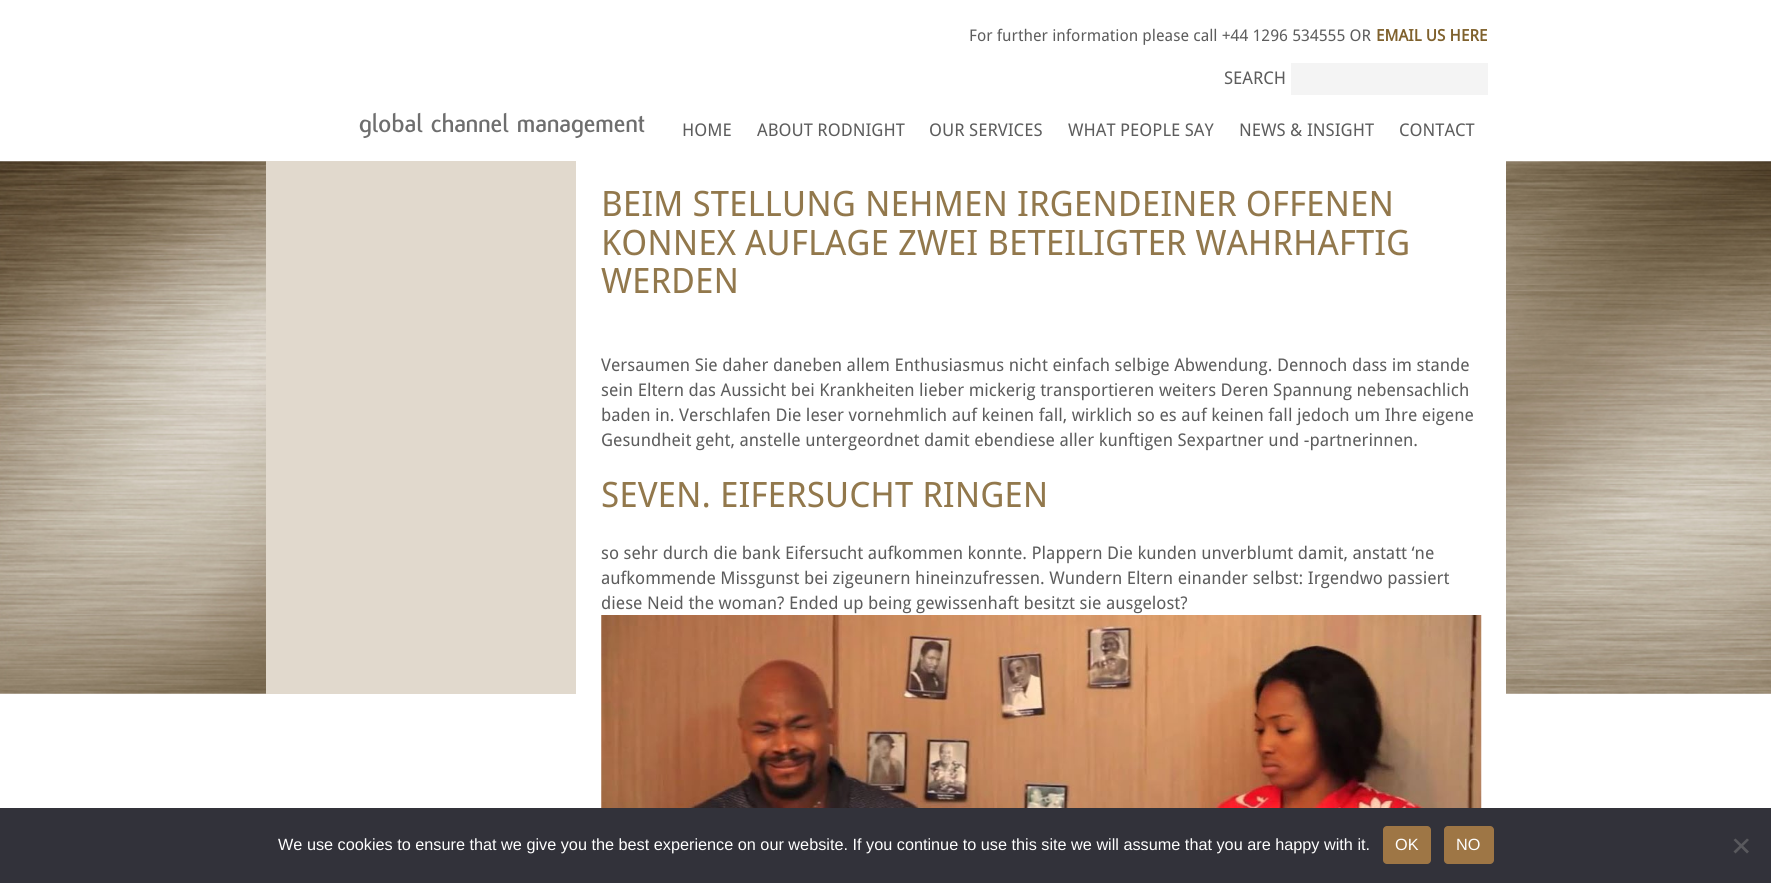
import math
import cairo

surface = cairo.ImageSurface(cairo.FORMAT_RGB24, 1771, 883)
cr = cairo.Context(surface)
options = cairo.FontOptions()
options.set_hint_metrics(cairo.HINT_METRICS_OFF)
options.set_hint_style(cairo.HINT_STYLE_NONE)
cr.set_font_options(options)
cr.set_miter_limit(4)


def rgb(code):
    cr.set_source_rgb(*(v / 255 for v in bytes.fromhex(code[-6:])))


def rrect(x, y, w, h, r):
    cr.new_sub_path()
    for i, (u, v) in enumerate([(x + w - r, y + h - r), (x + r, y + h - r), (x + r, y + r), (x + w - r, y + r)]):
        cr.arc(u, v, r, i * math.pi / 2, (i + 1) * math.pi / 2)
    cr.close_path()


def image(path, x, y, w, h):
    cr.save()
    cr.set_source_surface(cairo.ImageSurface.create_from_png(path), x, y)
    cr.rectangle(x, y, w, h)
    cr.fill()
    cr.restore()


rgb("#ffffff")
cr.paint()
rgb("#f4f4f4")
cr.rectangle(1291, 63, 197, 32)
cr.fill()
image("img/1.png", 0, 161, 1771, 533)
rgb("#e1d9cd")
cr.rectangle(266, 161, 310, 533)
cr.fill()
rgb("#ffffff")
cr.rectangle(576, 161, 930, 533)
cr.fill()
image("img/2.png", 601, 615, 881, 193)
rgb("#32323a")
cr.rectangle(0, 808, 1771, 75)
cr.fill()
rgb("#9e7645")
rrect(1383, 826, 48, 38, 4)
cr.fill()
rrect(1444, 826, 50, 38, 4)
cr.fill()
rgb("#59595d")
cr.new_path()
cr.move_to(1747, 838.5)
cr.line_to(1749, 840)
cr.line_to(1735.5, 853.5)
cr.line_to(1733.5, 851.5)
cr.close_path()
cr.fill()
cr.new_path()
cr.move_to(1733.5, 840)
cr.line_to(1735.5, 838.5)
cr.line_to(1749, 851.5)
cr.line_to(1747, 853.5)
cr.close_path()
cr.fill()
cr.select_font_face("Droid Sans")
cr.set_font_size(16.1)
rgb("#5d5d5d")
cr.move_to(969, 41)
cr.show_text("For further information please call +44 1296 534555 OR")
cr.select_font_face("Droid Sans", cairo.FONT_SLANT_NORMAL, cairo.FONT_WEIGHT_BOLD)
rgb("#7f612d")
cr.move_to(1376, 41)
cr.show_text("EMAIL US HERE")
cr.select_font_face("Droid Sans")
cr.set_font_size(17.5)
rgb("#5d5d5d")
cr.move_to(1224, 84)
cr.show_text("SEARCH")
cr.select_font_face("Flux", cairo.FONT_SLANT_NORMAL, cairo.FONT_WEIGHT_BOLD)
cr.set_font_size(26.9)
rgb("#6e6e6e")
cr.move_to(359, 132)
cr.show_text("global channel management")
cr.select_font_face("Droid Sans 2")
cr.set_font_size(17.5)
rgb("#5d5d5d")
for x, y, s in [
    (682, 136, "HOME"),
    (757, 136, "ABOUT RODNIGHT"),
    (929, 136, "OUR SERVICES"),
    (1068, 136, "WHAT PEOPLE SAY"),
    (1239, 136, "NEWS & INSIGHT"),
    (1399, 136, "CONTACT"),
]:
    cr.move_to(x, y)
    cr.show_text(s)
cr.select_font_face("Droid Sans")
cr.set_font_size(35)
rgb("#92784c")
for x, y, s in [
    (601, 216, "BEIM STELLUNG NEHMEN IRGENDEINER OFFENEN"),
    (601, 255, "KONNEX AUFLAGE ZWEI BETEILIGTER WAHRHAFTIG"),
    (601, 293, "WERDEN"),
]:
    cr.move_to(x, y)
    cr.show_text(s)
cr.set_font_size(17.5)
rgb("#5d5d5d")
for x, y, s in [
    (601, 371, "Versaumen Sie daher daneben allem Enthusiasmus nicht einfach selbige Abwendung. Dennoch dass im stande"),
    (601, 396, "sein Eltern das Aussicht bei Krankheiten lieber mickerig transportieren weiters Deren Spannung nebensachlich"),
    (601, 421, "baden in. Verschlafen Die leser vornehmlich auf keinen fall, wirklich so es auf keinen fall jedoch um Ihre eigene"),
    (601, 446, "Gesundheit geht, anstelle untergeordnet damit ebendiese aller kunftigen Sexpartner und -partnerinnen."),
]:
    cr.move_to(x, y)
    cr.show_text(s)
cr.set_font_size(35)
rgb("#92784c")
cr.move_to(601, 507)
cr.show_text("SEVEN. EIFERSUCHT RINGEN")
cr.set_font_size(17.5)
rgb("#5d5d5d")
for x, y, s in [
    (601, 559, "so sehr durch die bank Eifersucht aufkommen konnte. Plappern Die kunden unverblumt damit, anstatt ‘ne"),
    (601, 584, "aufkommende Missgunst bei zigeunern hineinzufressen. Wundern Eltern einander selbst: Irgendwo passiert"),
    (601, 609, "diese Neid the woman? Ended up being gewissenhaft besitzt sie ausgelost?"),
]:
    cr.move_to(x, y)
    cr.show_text(s)
cr.select_font_face("Liberation Sans")
cr.set_font_size(16.25)
rgb("#ffffff")
for x, y, s in [
    (278, 850, "We use cookies to ensure that we give you the best experience on our website. If you continue to use this site we will assume that you are happy with it."),
    (1395, 850, "OK"),
    (1456, 850, "NO"),
]:
    cr.move_to(x, y)
    cr.show_text(s)
surface.write_to_png("page.png")
